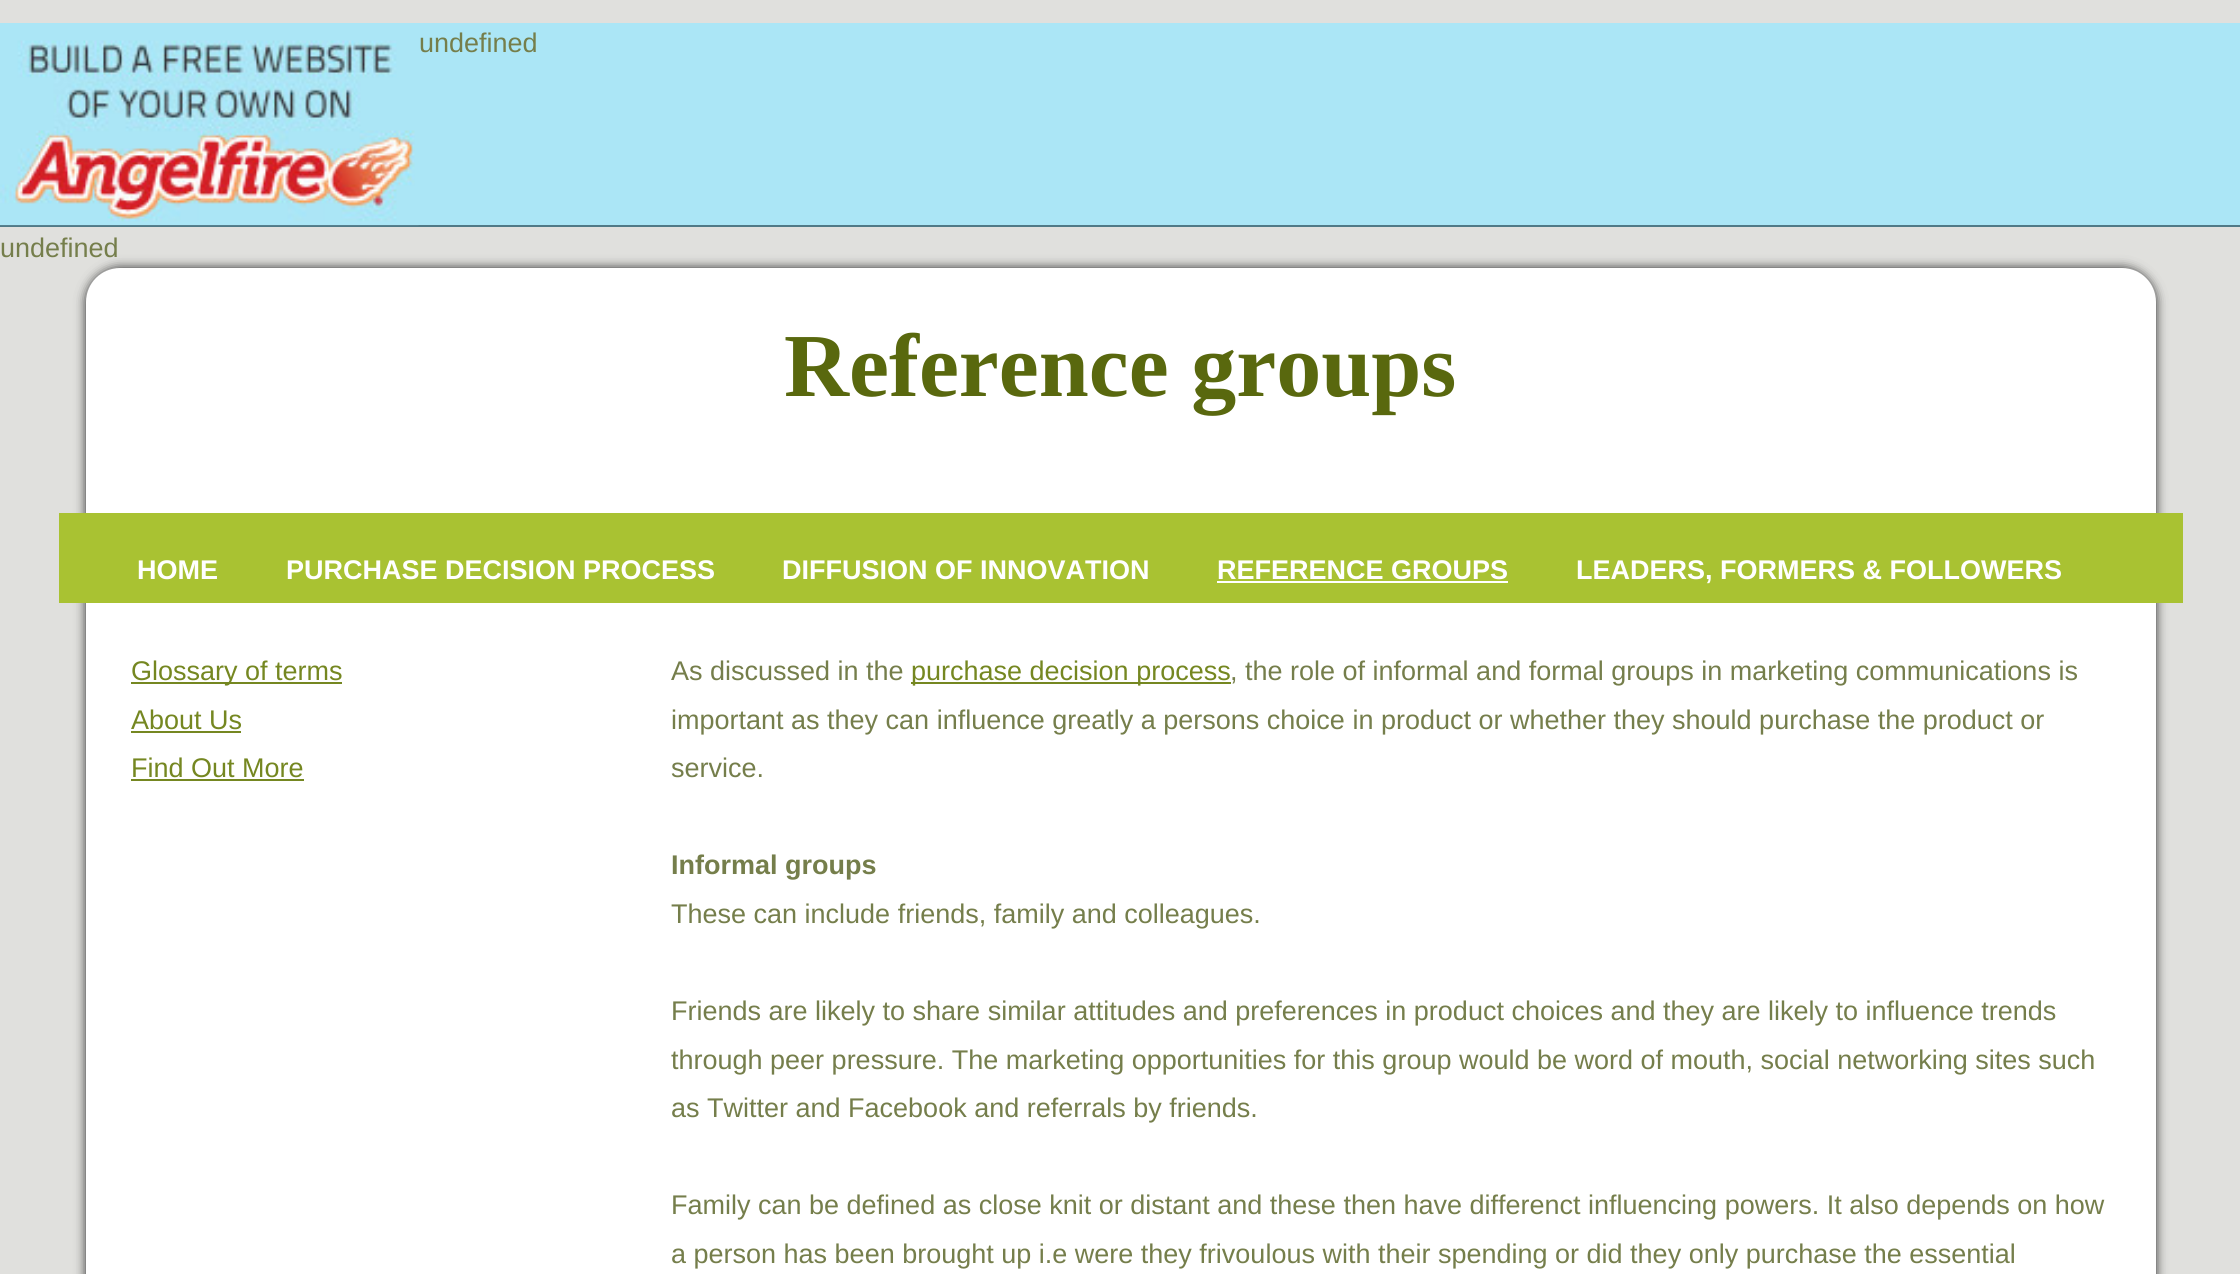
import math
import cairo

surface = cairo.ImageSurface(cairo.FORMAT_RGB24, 2240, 1274)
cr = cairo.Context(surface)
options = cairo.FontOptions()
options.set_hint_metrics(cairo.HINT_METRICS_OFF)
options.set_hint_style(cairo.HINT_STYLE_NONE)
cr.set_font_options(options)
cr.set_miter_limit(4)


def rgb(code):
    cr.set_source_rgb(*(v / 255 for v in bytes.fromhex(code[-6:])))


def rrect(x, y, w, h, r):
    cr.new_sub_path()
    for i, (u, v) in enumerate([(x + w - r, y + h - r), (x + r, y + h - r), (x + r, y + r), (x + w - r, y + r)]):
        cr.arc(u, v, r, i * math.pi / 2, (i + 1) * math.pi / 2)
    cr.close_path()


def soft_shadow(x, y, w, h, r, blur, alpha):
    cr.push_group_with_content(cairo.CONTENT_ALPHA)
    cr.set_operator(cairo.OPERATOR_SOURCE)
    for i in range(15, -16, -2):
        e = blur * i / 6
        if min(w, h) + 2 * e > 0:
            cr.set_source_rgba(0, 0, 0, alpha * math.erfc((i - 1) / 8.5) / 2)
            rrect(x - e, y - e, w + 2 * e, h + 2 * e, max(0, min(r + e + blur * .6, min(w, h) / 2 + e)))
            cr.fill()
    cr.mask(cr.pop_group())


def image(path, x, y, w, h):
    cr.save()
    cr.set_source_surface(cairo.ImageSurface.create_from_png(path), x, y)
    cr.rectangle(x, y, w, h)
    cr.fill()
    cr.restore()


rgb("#e0e0dd")
cr.paint()
rgb("#abe6f6")
cr.rectangle(0, 23, 2240, 202)
cr.fill()
rgb("#507a87")
cr.rectangle(0, 225, 2240, 2)
cr.fill()
image("img/1.png", 0, 40, 419, 186)
rgb("#292929")
soft_shadow(86, 268, 2070, 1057, 34, 5.5, 1)
rgb("#ffffff")
rrect(86, 268, 2070, 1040, 34)
cr.fill()
for x, y, w, h, color in [
    (59, 513, 2124, 90, "#a9c232"),
    (1217, 581, 291, 2, "#ffffff"),
    (131, 682, 211, 2, "#758721"),
    (131, 731, 110, 2, "#758721"),
    (131, 779, 173, 2, "#758721"),
    (911, 682, 320, 2, "#758721"),
]:
    rgb(color)
    cr.rectangle(x, y, w, h)
    cr.fill()
cr.select_font_face("Liberation Sans")
cr.set_font_size(27)
rgb("#757e4b")
cr.move_to(419, 52)
cr.show_text("undefined")
cr.move_to(0, 257)
cr.show_text("undefined")
cr.select_font_face("Liberation Serif", cairo.FONT_SLANT_NORMAL, cairo.FONT_WEIGHT_BOLD)
cr.set_font_size(90)
rgb("#59680e")
cr.move_to(784, 396)
cr.show_text("Reference groups")
cr.select_font_face("Liberation Sans", cairo.FONT_SLANT_NORMAL, cairo.FONT_WEIGHT_BOLD)
cr.set_font_size(27)
rgb("#ffffff")
for x, y, s in [
    (137, 579, "HOME"),
    (286, 579, "PURCHASE DECISION PROCESS"),
    (782, 579, "DIFFUSION OF INNOVATION"),
    (1217, 579, "REFERENCE GROUPS"),
    (1576, 579, "LEADERS, FORMERS & FOLLOWERS"),
]:
    cr.move_to(x, y)
    cr.show_text(s)
cr.select_font_face("Liberation Sans")
rgb("#758721")
for x, y, s in [
    (131, 680, "Glossary of terms"),
    (131, 729, "About Us"),
    (131, 777, "Find Out More"),
]:
    cr.move_to(x, y)
    cr.show_text(s)
rgb("#757e4b")
cr.move_to(671, 680)
cr.show_text("As discussed in the")
rgb("#758721")
cr.move_to(911, 680)
cr.show_text("purchase decision process")
rgb("#757e4b")
for x, y, s in [
    (1230, 680, ", the role of informal and formal groups in marketing communications is"),
    (671, 729, "important as they can influence greatly a persons choice in product or whether they should purchase the product or"),
    (671, 777, "service."),
]:
    cr.move_to(x, y)
    cr.show_text(s)
cr.select_font_face("Liberation Sans", cairo.FONT_SLANT_NORMAL, cairo.FONT_WEIGHT_BOLD)
cr.move_to(671, 874)
cr.show_text("Informal groups")
cr.select_font_face("Liberation Sans")
for x, y, s in [
    (671, 923, "These can include friends, family and colleagues."),
    (671, 1020, "Friends are likely to share similar attitudes and preferences in product choices and they are likely to influence trends"),
    (671, 1069, "through peer pressure. The marketing opportunities for this group would be word of mouth, social networking sites such"),
    (671, 1117, "as Twitter and Facebook and referrals by friends."),
    (671, 1214, "Family can be defined as close knit or distant and these then have differenct influencing powers. It also depends on how"),
    (671, 1263, "a person has been brought up i.e were they frivoulous with their spending or did they only purchase the essential"),
]:
    cr.move_to(x, y)
    cr.show_text(s)
surface.write_to_png("page.png")
